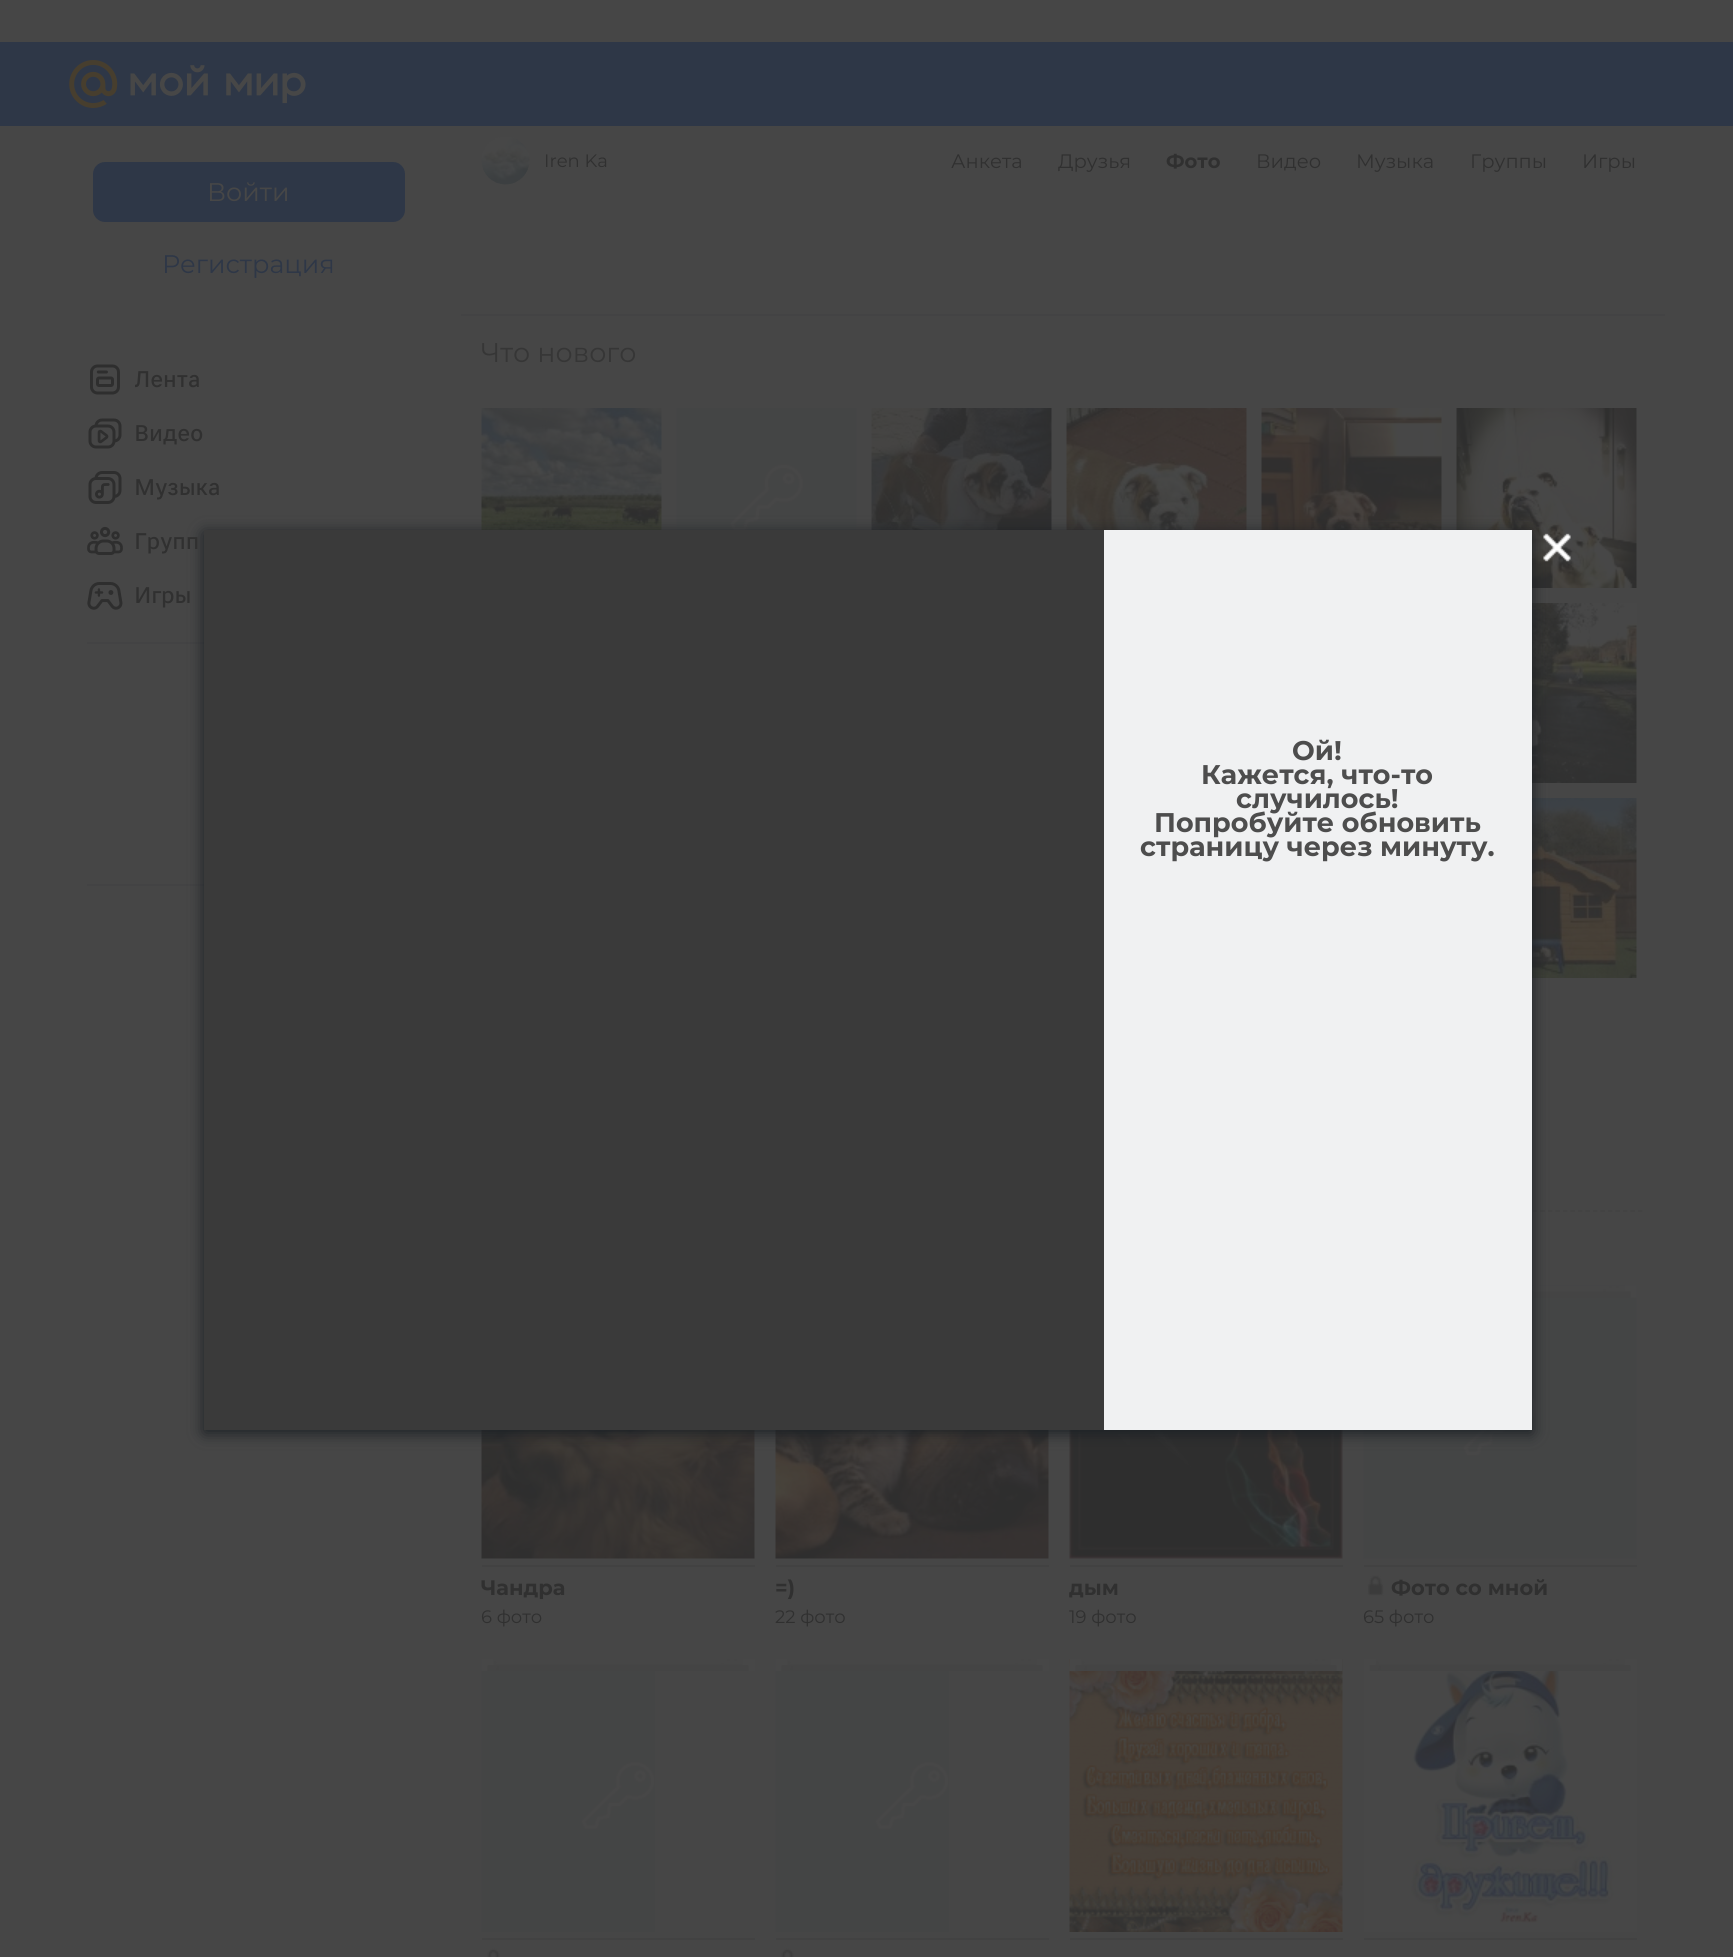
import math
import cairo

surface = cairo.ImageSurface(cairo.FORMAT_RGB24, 1733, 1957)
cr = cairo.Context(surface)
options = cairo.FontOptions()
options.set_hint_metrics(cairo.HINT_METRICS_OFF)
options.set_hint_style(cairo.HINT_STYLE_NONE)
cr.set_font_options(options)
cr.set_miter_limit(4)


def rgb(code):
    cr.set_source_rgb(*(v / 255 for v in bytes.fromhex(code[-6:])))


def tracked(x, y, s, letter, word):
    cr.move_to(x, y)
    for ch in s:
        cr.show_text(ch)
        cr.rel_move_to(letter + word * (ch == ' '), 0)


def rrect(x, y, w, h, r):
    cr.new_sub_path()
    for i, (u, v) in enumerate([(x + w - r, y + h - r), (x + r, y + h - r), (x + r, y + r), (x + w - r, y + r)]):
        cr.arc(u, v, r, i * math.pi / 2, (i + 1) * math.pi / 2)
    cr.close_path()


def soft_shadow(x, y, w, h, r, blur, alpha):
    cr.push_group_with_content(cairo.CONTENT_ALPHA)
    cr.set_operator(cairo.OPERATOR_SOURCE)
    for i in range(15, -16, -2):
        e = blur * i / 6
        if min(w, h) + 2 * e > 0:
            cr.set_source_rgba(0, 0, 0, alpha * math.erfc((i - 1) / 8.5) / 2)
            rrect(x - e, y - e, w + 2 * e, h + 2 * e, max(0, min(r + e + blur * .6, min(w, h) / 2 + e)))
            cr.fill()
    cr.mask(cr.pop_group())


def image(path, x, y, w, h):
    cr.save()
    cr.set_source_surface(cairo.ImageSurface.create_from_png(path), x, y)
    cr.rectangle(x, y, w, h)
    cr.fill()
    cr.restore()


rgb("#464646")
cr.paint()
rgb("#2e3747")
cr.rectangle(0, 42, 1733, 84)
cr.fill()
image("img/1.png", 69, 60, 237, 48)
rrect(93, 162, 312, 60, 12)
cr.fill()
image("img/2.png", 90, 364, 30, 31)
image("img/3.png", 88, 418, 34, 31)
image("img/4.png", 88, 471, 34, 33)
image("img/5.png", 87, 526, 36, 29)
image("img/6.png", 87, 582, 36, 28)
rgb("#434344")
cr.rectangle(87, 642, 117, 2)
cr.fill()
cr.rectangle(87, 884, 117, 2)
cr.fill()
image("img/7.png", 481, 137, 49, 48)
cr.rectangle(461, 314, 1204, 2)
cr.fill()
image("img/8.png", 481, 408, 181, 122)
image("img/9.png", 676, 408, 181, 122)
image("img/10.png", 871, 408, 181, 122)
image("img/11.png", 1066, 408, 181, 122)
image("img/12.png", 1261, 408, 181, 122)
image("img/13.png", 1456, 408, 181, 180)
image("img/14.png", 1532, 603, 105, 180)
image("img/15.png", 1532, 798, 105, 180)
cr.new_path()
cr.move_to(481.5, 1211)
cr.line_to(1644, 1211)
rgb("#424242")
cr.set_line_width(1.5)
cr.set_dash([4.5, 3.01])
cr.stroke()
image("img/16.png", 481, 1430, 274, 129)
cr.rectangle(482, 1565, 273, 2)
cr.fill()
image("img/17.png", 775, 1430, 274, 129)
cr.rectangle(776, 1565, 273, 2)
cr.fill()
image("img/18.png", 1069, 1430, 274, 129)
cr.rectangle(1070, 1565, 273, 2)
cr.fill()
image("img/19.png", 1363, 1285, 274, 274)
image("img/20.png", 1532, 1285, 105, 13)
cr.rectangle(1364, 1565, 273, 2)
cr.fill()
image("img/21.png", 1367, 1575, 17, 21)
image("img/22.png", 481, 1659, 174, 273)
image("img/23.png", 481, 1659, 274, 12)
cr.rectangle(482, 1938, 273, 2)
cr.fill()
image("img/24.png", 487, 1948, 13, 9)
image("img/22.png", 775, 1659, 174, 273)
image("img/23.png", 775, 1659, 274, 12)
cr.rectangle(776, 1938, 273, 2)
cr.fill()
image("img/24.png", 781, 1948, 13, 9)
image("img/25.png", 1069, 1659, 274, 273)
image("img/26.png", 1069, 1659, 274, 12)
cr.rectangle(1070, 1938, 273, 2)
cr.fill()
image("img/27.png", 1364, 1659, 273, 273)
image("img/28.png", 1369, 1659, 268, 12)
cr.rectangle(1364, 1938, 273, 2)
cr.fill()
rgb("#1a1f24")
soft_shadow(204, 533, 1328, 900, 0, 7.5, 1)
image("img/29.png", 1543, 533, 28, 29)
rgb("#f0f1f2")
cr.rectangle(1104, 530, 428, 900)
cr.fill()
rgb("#3a3a3a")
cr.rectangle(204, 530, 900, 900)
cr.fill()
cr.select_font_face("Montserrat")
cr.set_font_size(25.5)
rgb("#474747")
cr.move_to(207, 201)
cr.show_text("Войти")
rgb("#2e3747")
cr.move_to(162, 273)
cr.show_text("Регистрация")
cr.save()
cr.rectangle(135, 366, 165, 27)
cr.clip()
cr.select_font_face("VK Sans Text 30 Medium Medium")
cr.set_font_size(22.5)
rgb("#303030")
tracked(134, 387, "Лента", -0.25, 0)
cr.restore()
cr.select_font_face("VK Sans Text 30 Medium Medium")
cr.set_font_size(22.5)
rgb("#303030")
for x, y, s in [
    (134, 441, "Видео"),
    (134, 495, "Музыка"),
    (134, 549, "Групп"),
    (134, 603, "Игры"),
]:
    tracked(x, y, s, -0.25, 0)
cr.select_font_face("Montserrat")
cr.set_font_size(18)
cr.move_to(544, 167)
cr.show_text("Iren Ka")
cr.set_font_size(19.5)
cr.move_to(951, 168)
cr.show_text("Анкета")
cr.move_to(1058, 168)
cr.show_text("Друзья")
cr.select_font_face("Montserrat", cairo.FONT_SLANT_NORMAL, cairo.FONT_WEIGHT_BOLD)
cr.move_to(1166, 168)
cr.show_text("Фото")
cr.select_font_face("Montserrat")
for x, y, s in [
    (1256, 168, "Видео"),
    (1356, 168, "Музыка"),
    (1470, 168, "Группы"),
    (1582, 168, "Игры"),
]:
    cr.move_to(x, y)
    cr.show_text(s)
cr.set_font_size(27)
rgb("#363636")
cr.move_to(481, 362)
cr.show_text("Что нового")
cr.select_font_face("Montserrat", cairo.FONT_SLANT_NORMAL, cairo.FONT_WEIGHT_BOLD)
cr.set_font_size(21)
rgb("#303030")
cr.move_to(481, 1595)
cr.show_text("Чандра")
cr.select_font_face("Montserrat")
cr.set_font_size(18)
cr.move_to(481, 1623)
cr.show_text("6 фото")
cr.select_font_face("Montserrat", cairo.FONT_SLANT_NORMAL, cairo.FONT_WEIGHT_BOLD)
cr.set_font_size(21)
cr.move_to(775, 1595)
cr.show_text("=)")
cr.select_font_face("Montserrat")
cr.set_font_size(18)
cr.move_to(775, 1623)
cr.show_text("22 фото")
cr.select_font_face("Montserrat", cairo.FONT_SLANT_NORMAL, cairo.FONT_WEIGHT_BOLD)
cr.set_font_size(21)
cr.move_to(1069, 1595)
cr.show_text("дым")
cr.select_font_face("Montserrat")
cr.set_font_size(18)
cr.move_to(1069, 1623)
cr.show_text("19 фото")
cr.select_font_face("Montserrat", cairo.FONT_SLANT_NORMAL, cairo.FONT_WEIGHT_BOLD)
cr.set_font_size(21)
cr.move_to(1391, 1595)
cr.show_text("Фото со мной")
cr.select_font_face("Montserrat")
cr.set_font_size(18)
cr.move_to(1363, 1623)
cr.show_text("65 фото")
cr.select_font_face("Montserrat", cairo.FONT_SLANT_NORMAL, cairo.FONT_WEIGHT_BOLD)
cr.set_font_size(27)
rgb("#4d4d4d")
for x, y, s in [
    (1292, 760, "Ой!"),
    (1201, 784, "Кажется, что-то"),
    (1236, 808, "случилось!"),
    (1154, 832, "Попробуйте обновить"),
    (1140, 856, "страницу через минуту."),
]:
    cr.move_to(x, y)
    cr.show_text(s)
surface.write_to_png("page.png")
